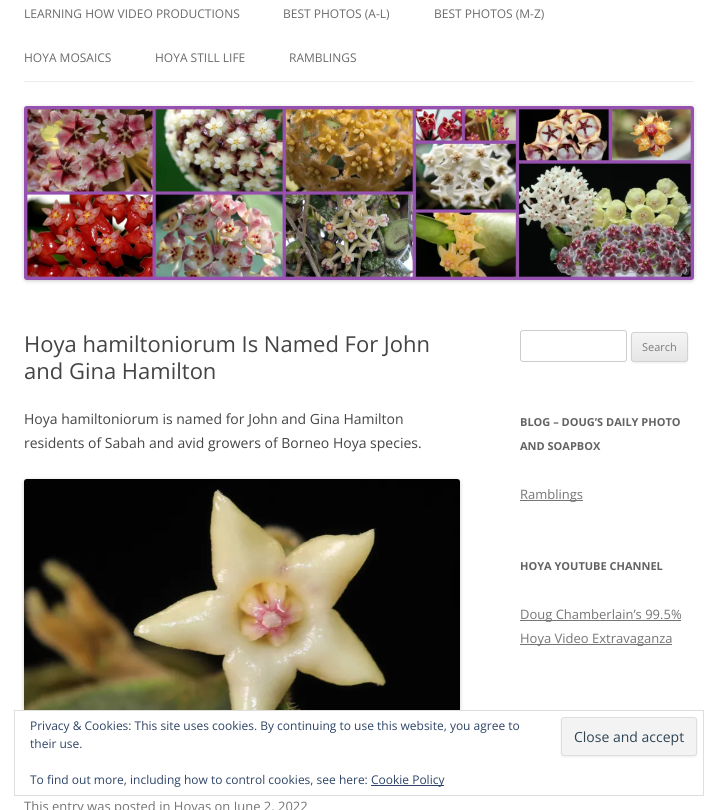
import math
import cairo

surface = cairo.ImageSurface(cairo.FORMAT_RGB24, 718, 810)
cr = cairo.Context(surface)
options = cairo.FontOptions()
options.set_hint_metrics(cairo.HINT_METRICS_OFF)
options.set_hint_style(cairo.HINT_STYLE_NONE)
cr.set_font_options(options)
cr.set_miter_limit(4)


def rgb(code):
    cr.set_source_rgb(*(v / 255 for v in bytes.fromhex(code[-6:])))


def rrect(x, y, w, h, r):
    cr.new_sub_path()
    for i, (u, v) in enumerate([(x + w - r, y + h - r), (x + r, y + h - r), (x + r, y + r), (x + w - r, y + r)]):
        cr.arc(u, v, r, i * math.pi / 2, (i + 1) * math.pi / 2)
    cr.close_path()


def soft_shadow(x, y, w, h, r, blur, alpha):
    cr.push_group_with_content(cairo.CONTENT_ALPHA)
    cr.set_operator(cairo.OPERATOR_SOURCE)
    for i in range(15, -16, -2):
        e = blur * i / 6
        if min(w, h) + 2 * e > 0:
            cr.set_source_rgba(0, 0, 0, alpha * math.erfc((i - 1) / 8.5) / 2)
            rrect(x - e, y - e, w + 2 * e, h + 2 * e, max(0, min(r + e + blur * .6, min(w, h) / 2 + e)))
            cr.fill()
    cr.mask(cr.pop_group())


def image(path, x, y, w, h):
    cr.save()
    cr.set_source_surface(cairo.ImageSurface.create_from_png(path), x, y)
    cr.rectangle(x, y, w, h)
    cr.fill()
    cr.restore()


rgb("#ffffff")
cr.paint()
rgb("#ededed")
cr.rectangle(24, 81, 670, 1)
cr.fill()
rgb("#000000")
soft_shadow(24, 107, 670, 174, 3, 2, 0.2)
image("img/1.png", 24, 106, 670, 174)
soft_shadow(24, 480, 436, 291, 3, 2, 0.2)
image("img/2.png", 24, 479, 436, 231)
rrect(520.5, 330.5, 106, 31, 2.5)
rgb("#cccccc")
cr.set_line_width(1)
cr.stroke()
rgb("#404040")
soft_shadow(631, 333, 57, 30, 3, 1, 0.1)
cr.save()
rrect(631, 332, 57, 30, 3)
cr.clip()
gradient = cairo.LinearGradient(660, 333, 660, 361)
gradient.add_color_stop_rgba(0, 0.957, 0.957, 0.957, 1)
gradient.add_color_stop_rgba(1, 0.902, 0.902, 0.902, 1)
cr.set_source(gradient)
cr.rectangle(631, 333, 57, 28)
cr.fill()
cr.restore()
rrect(631.5, 332.5, 56, 29, 2.5)
rgb("#d2d2d2")
cr.stroke()
for x, y, w, h, color in [
    (520, 500, 63, 1, "#757575"),
    (520, 620, 161, 1, "#757575"),
    (520, 644, 152, 1, "#757575"),
    (21, 711, 442, 63, "#ffffff"),
]:
    rgb(color)
    cr.rectangle(x, y, w, h)
    cr.fill()
cr.rectangle(14.5, 710.5, 689, 85)
rgb("#dedede")
cr.stroke()
rgb("#404040")
soft_shadow(561, 718, 136, 39, 3, 1, 0.1)
rgb("#f3f3f3")
rrect(561.5, 717.5, 135, 38, 2.5)
cr.fill_preserve()
rgb("#dedede")
cr.stroke()
rgb("#2e4467")
cr.rectangle(371, 785, 73, 1)
cr.fill()
cr.select_font_face("Open Sans")
cr.set_font_size(12)
rgb("#6a6a6a")
for x, y, s in [
    (24, 18, "LEARNING HOW VIDEO PRODUCTIONS"),
    (283, 18, "BEST PHOTOS (A-L)"),
    (434, 18, "BEST PHOTOS (M-Z)"),
    (24, 62, "HOYA MOSAICS"),
    (155, 62, "HOYA STILL LIFE"),
    (289, 62, "RAMBLINGS"),
]:
    cr.move_to(x, y)
    cr.show_text(s)
cr.set_font_size(22)
rgb("#444444")
cr.move_to(24, 352)
cr.show_text("Hoya hamiltoniorum Is Named For John")
cr.move_to(24, 379)
cr.show_text("and Gina Hamilton")
cr.set_font_size(14)
cr.move_to(24, 424)
cr.show_text("Hoya hamiltoniorum is named for John and Gina Hamilton")
cr.move_to(24, 448)
cr.show_text("residents of Sabah and avid growers of Borneo Hoya species.")
cr.set_font_size(13)
rgb("#757575")
cr.move_to(24, 811)
cr.show_text("This entry was posted in Hoyas on June 2, 2022")
cr.set_font_size(11)
rgb("#7c7c7c")
cr.move_to(642, 351)
cr.show_text("Search")
cr.select_font_face("Open Sans", cairo.FONT_SLANT_NORMAL, cairo.FONT_WEIGHT_BOLD)
rgb("#636363")
cr.move_to(520, 426)
cr.show_text("BLOG – DOUG’S DAILY PHOTO")
cr.move_to(520, 450)
cr.show_text("AND SOAPBOX")
cr.select_font_face("Open Sans")
cr.set_font_size(13)
rgb("#757575")
cr.move_to(520, 499)
cr.show_text("Ramblings")
cr.select_font_face("Open Sans", cairo.FONT_SLANT_NORMAL, cairo.FONT_WEIGHT_BOLD)
cr.set_font_size(11)
rgb("#636363")
cr.move_to(520, 570)
cr.show_text("HOYA YOUTUBE CHANNEL")
cr.select_font_face("Open Sans")
cr.set_font_size(13)
rgb("#757575")
cr.move_to(520, 619)
cr.show_text("Doug Chamberlain’s 99.5%")
cr.move_to(520, 643)
cr.show_text("Hoya Video Extravaganza")
cr.set_font_size(12)
rgb("#2e4467")
cr.move_to(30, 730)
cr.show_text("Privacy & Cookies: This site uses cookies. By continuing to use this website, you agree to")
cr.move_to(30, 748)
cr.show_text("their use.")
cr.set_font_size(14)
rgb("#2e4453")
cr.move_to(574, 742)
cr.show_text("Close and accept")
cr.set_font_size(12)
rgb("#2e4467")
cr.move_to(30, 784)
cr.show_text("To find out more, including how to control cookies, see here:")
cr.move_to(371, 784)
cr.show_text("Cookie Policy")
surface.write_to_png("page.png")
